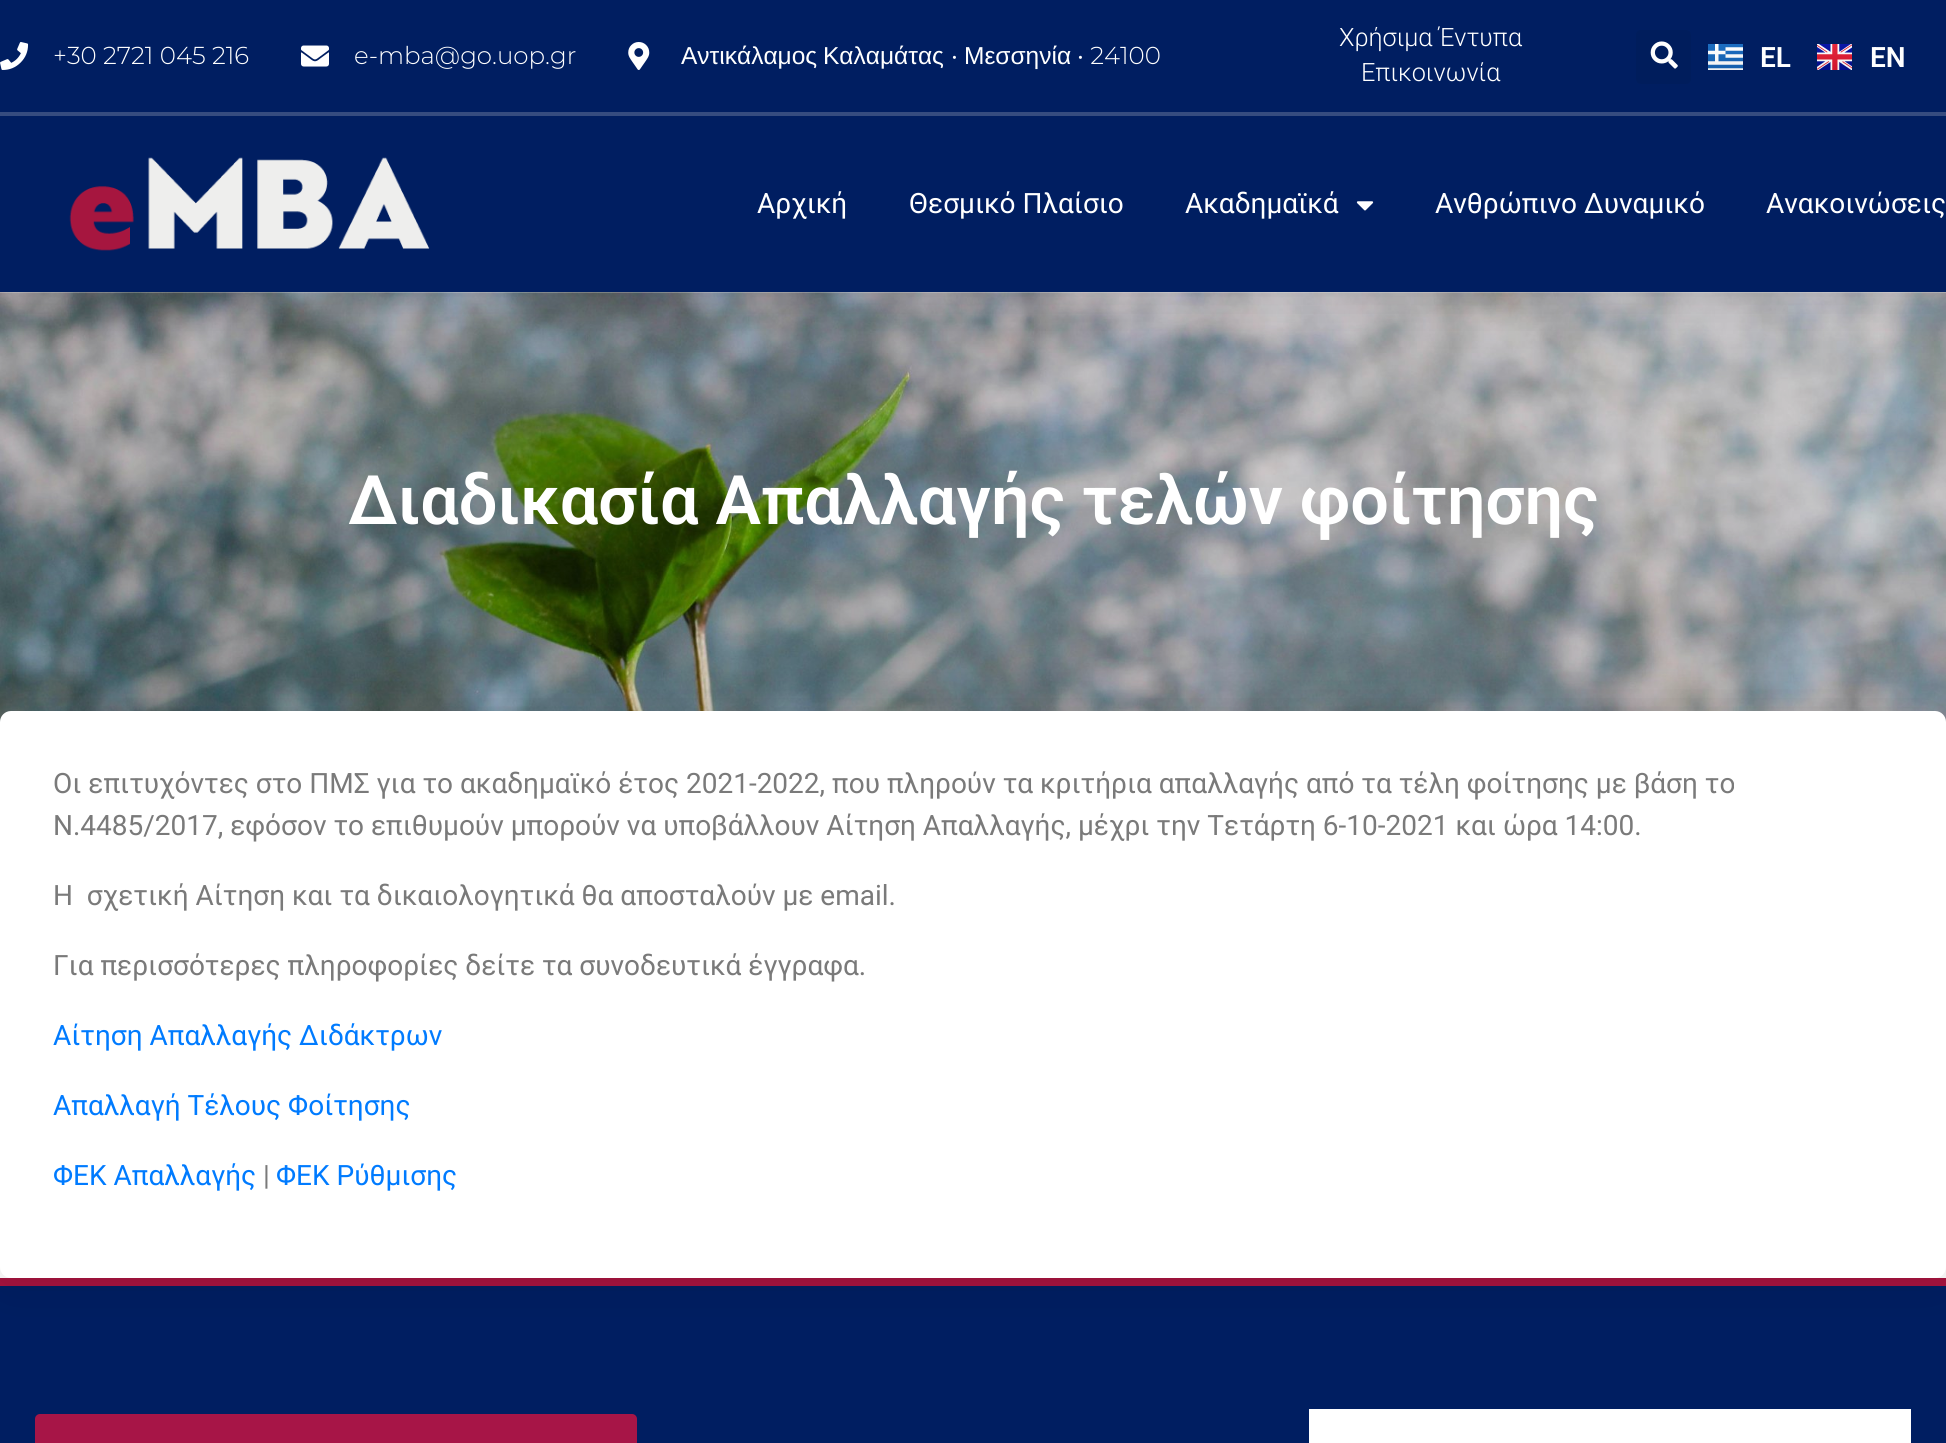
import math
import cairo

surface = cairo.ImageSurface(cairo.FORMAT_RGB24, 1946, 1443)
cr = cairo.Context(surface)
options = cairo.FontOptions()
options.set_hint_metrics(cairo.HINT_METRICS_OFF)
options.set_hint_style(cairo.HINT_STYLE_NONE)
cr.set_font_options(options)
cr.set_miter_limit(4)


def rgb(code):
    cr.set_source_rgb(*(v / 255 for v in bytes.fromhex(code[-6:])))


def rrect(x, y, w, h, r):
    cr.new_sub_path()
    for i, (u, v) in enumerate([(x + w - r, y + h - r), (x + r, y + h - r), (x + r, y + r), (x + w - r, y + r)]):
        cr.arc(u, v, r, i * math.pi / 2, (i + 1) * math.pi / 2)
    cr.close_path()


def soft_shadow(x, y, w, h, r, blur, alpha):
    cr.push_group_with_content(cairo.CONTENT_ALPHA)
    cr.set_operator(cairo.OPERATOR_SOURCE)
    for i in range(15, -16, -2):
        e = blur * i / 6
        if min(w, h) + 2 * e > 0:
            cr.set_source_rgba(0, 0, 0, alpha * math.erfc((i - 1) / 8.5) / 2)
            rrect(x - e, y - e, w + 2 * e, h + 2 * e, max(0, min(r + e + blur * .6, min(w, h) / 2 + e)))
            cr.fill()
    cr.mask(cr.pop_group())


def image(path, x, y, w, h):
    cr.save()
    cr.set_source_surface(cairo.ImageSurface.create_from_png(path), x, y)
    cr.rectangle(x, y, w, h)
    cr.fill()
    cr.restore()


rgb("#ffffff")
cr.paint()
image("img/9.png", 0, 292, 1946, 430)
rgb("#000000")
soft_shadow(0, 9, 1946, 292, 0, 26, 0.1)
rgb("#001e61")
cr.rectangle(0, 0, 1946, 292)
cr.fill()
rgb("#364c7f")
cr.rectangle(0, 112, 1946, 4)
cr.fill()
image("img/1.png", 0, 42, 29, 28)
image("img/2.png", 301, 45, 28, 22)
image("img/3.png", 628, 42, 22, 28)
rgb("#001d5c")
rrect(1636, 30, 55, 54, 5)
cr.fill()
image("img/4.png", 1650, 41, 28, 28)
image("img/5.png", 1708, 44, 35, 26)
image("img/6.png", 1817, 44, 35, 26)
image("img/7.png", 69, 157, 361, 94)
image("img/8.png", 1356, 201, 18, 10)
rgb("#001e61")
cr.rectangle(0, 1286, 1946, 157)
cr.fill()
rgb("#a5133e")
cr.rectangle(0, 1278, 1946, 8)
cr.fill()
rgb("#000000")
soft_shadow(0, 711, 1946, 567, 11, 26, 0.13)
rgb("#ffffff")
rrect(0, 711, 1946, 567, 11)
cr.fill()
rgb("#a71547")
rrect(35, 1414, 602, 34, 5)
cr.fill()
rgb("#ffffff")
cr.rectangle(1309, 1409, 602, 34)
cr.fill()
cr.select_font_face("Montserrat Light")
cr.set_font_size(24.5)
cr.move_to(53, 64)
cr.show_text("+30 2721 045 216")
cr.move_to(354, 64)
cr.show_text("e-mba@go.uop.gr")
cr.select_font_face("Liberation Sans")
cr.move_to(681, 64)
cr.show_text("Αντικάλαμος")
cr.move_to(823, 64)
cr.show_text("Καλαμάτας")
cr.select_font_face("Montserrat Light")
cr.move_to(951, 64)
cr.show_text("•")
cr.select_font_face("Liberation Sans")
cr.move_to(964, 64)
cr.show_text("Μεσσηνία")
cr.select_font_face("Montserrat Light")
cr.move_to(1077, 64)
cr.show_text("• 24100")
cr.select_font_face("Roboto Light")
cr.set_font_size(25.25)
cr.move_to(1339, 46)
cr.show_text("Χρήσιμα Έντυπα")
cr.move_to(1361, 81)
cr.show_text("Επικοινωνία")
cr.select_font_face("Roboto SemiBold")
cr.set_font_size(28)
cr.move_to(1760, 67)
cr.show_text("EL")
cr.move_to(1870, 67)
cr.show_text("EN")
cr.select_font_face("Roboto")
for x, y, s in [
    (757, 213, "Αρχική"),
    (909, 213, "Θεσμικό Πλαίσιο"),
    (1185, 213, "Ακαδημαϊκά"),
    (1435, 213, "Ανθρώπινο Δυναμικό"),
    (1766, 213, "Ανακοινώσεις"),
]:
    cr.move_to(x, y)
    cr.show_text(s)
cr.select_font_face("Roboto SemiBold")
cr.set_font_size(68.25)
cr.move_to(348, 524)
cr.show_text("Διαδικασία Απαλλαγής τελών φοίτησης")
cr.select_font_face("Roboto")
cr.set_font_size(28)
rgb("#7a7a7a")
for x, y, s in [
    (53, 793, "Οι επιτυχόντες στο ΠΜΣ για το ακαδημαϊκό έτος 2021-2022, που πληρούν τα κριτήρια απαλλαγής από τα τέλη φοίτησης με βάση το"),
    (53, 835, "Ν.4485/2017, εφόσον το επιθυμούν μπορούν να υποβάλλουν Αίτηση Απαλλαγής, μέχρι την Τετάρτη 6-10-2021 και ώρα 14:00."),
    (53, 905, "Η  σχετική Αίτηση και τα δικαιολογητικά θα αποσταλούν με email."),
    (53, 975, "Για περισσότερες πληροφορίες δείτε τα συνοδευτικά έγγραφα."),
]:
    cr.move_to(x, y)
    cr.show_text(s)
rgb("#007bff")
for x, y, s in [
    (53, 1045, "Αίτηση Απαλλαγής Διδάκτρων"),
    (53, 1115, "Απαλλαγή Τέλους Φοίτησης"),
    (53, 1185, "ΦΕΚ Απαλλαγής"),
]:
    cr.move_to(x, y)
    cr.show_text(s)
rgb("#7a7a7a")
cr.move_to(263, 1185)
cr.show_text("|")
rgb("#007bff")
cr.move_to(276, 1185)
cr.show_text("ΦΕΚ Ρύθμισης")
surface.write_to_png("page.png")
